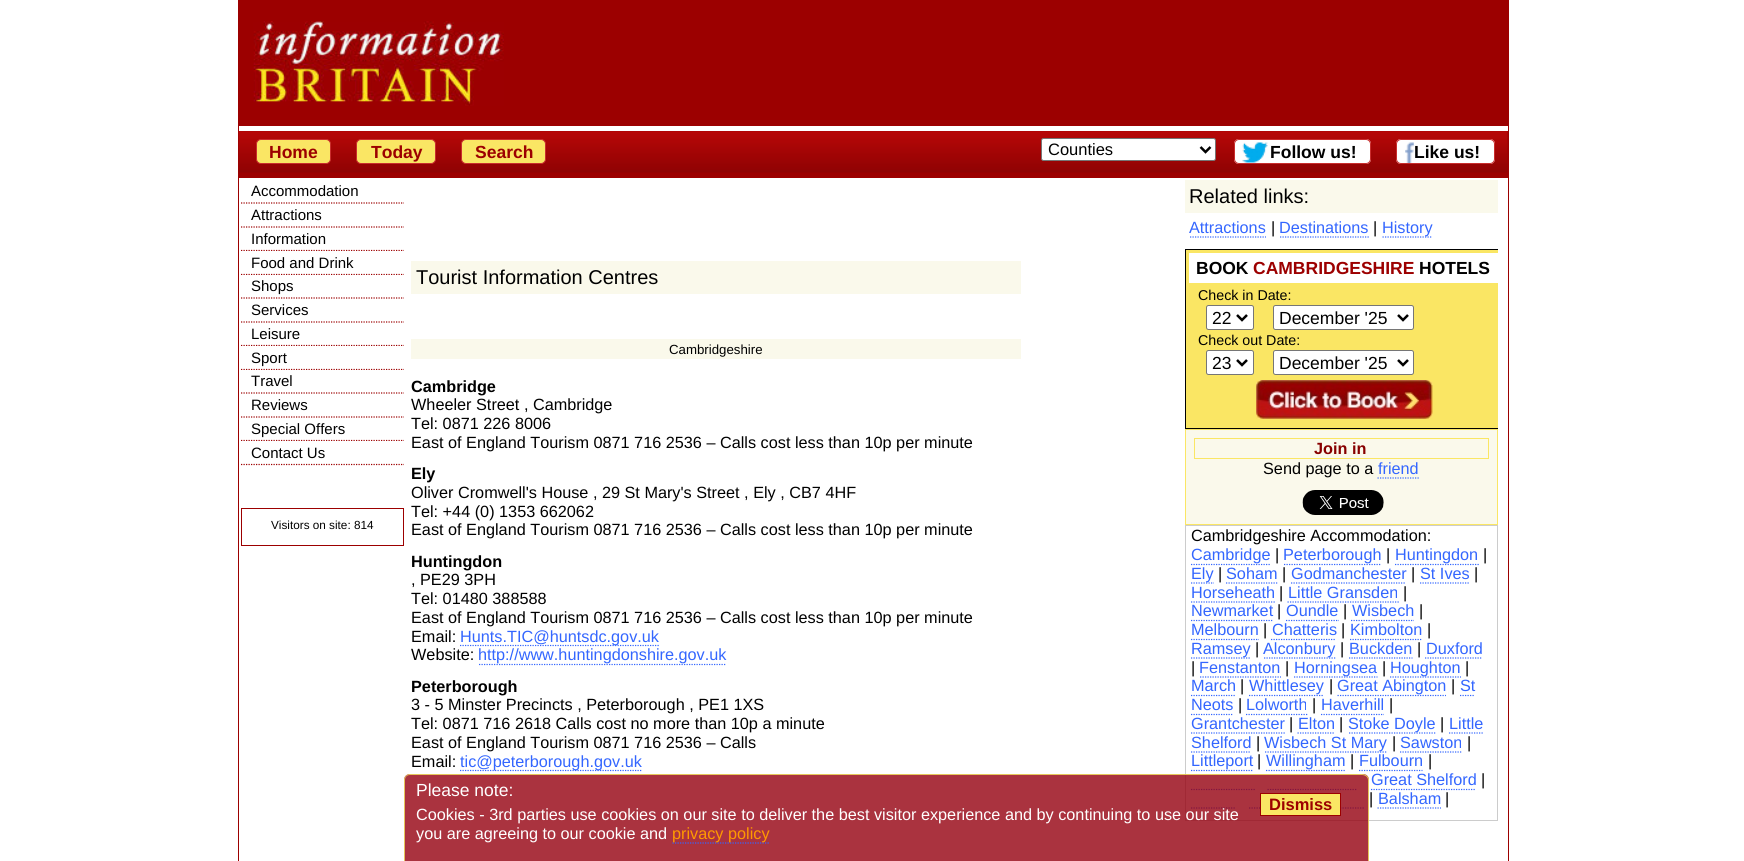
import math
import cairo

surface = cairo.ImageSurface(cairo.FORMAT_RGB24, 1744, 861)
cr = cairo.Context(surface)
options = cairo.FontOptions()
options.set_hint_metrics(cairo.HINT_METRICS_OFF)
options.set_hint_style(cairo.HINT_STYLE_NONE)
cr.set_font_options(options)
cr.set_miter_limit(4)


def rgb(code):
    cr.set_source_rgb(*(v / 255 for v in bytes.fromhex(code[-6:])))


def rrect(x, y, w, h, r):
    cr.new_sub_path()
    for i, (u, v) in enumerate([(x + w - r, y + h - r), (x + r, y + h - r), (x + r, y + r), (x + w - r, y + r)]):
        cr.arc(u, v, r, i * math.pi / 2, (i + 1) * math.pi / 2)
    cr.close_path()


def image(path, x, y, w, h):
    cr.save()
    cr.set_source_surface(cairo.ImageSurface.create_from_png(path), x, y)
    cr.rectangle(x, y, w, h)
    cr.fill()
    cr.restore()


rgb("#ffffff")
cr.paint()
cr.rectangle(238.5, 0.5, 1270, 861)
rgb("#9c0000")
cr.set_line_width(1)
cr.stroke()
cr.rectangle(239, 1, 1269, 125)
cr.fill()
image("img/1.png", 253, 21, 251, 85)
cr.rectangle(239, 131, 1269, 47)
cr.fill()
image("img/2.png", 238, 131, 1270, 42)
rgb("#fae664")
rrect(256.5, 139.5, 74, 24, 4.5)
cr.fill_preserve()
rgb("#c92d2d")
cr.stroke()
rgb("#fae664")
rrect(356.5, 139.5, 79, 24, 4.5)
cr.fill_preserve()
rgb("#c92d2d")
cr.stroke()
rgb("#fae664")
rrect(461.5, 139.5, 84, 24, 4.5)
cr.fill_preserve()
rgb("#c92d2d")
cr.stroke()
rgb("#ffffff")
rrect(1041.5, 138.5, 174, 22, 2)
cr.fill_preserve()
rgb("#767676")
cr.stroke()
cr.new_path()
cr.move_to(1200.5, 147)
cr.line_to(1205.5, 152)
cr.line_to(1210.5, 147)
rgb("#000000")
cr.set_line_width(2.5)
cr.stroke()
rgb("#ffffff")
rrect(1234, 139, 137, 25, 5)
cr.fill()
image("img/3.png", 1242, 142, 26, 21)
rrect(1234.5, 139.5, 136, 24, 4.5)
rgb("#c92d2d")
cr.set_line_width(1)
cr.stroke()
rgb("#ffffff")
rrect(1396, 139, 99, 25, 5)
cr.fill()
image("img/4.png", 1405, 142, 9, 21)
rrect(1396.5, 139.5, 98, 24, 4.5)
rgb("#c92d2d")
cr.stroke()
cr.new_path()
cr.move_to(241, 203)
cr.line_to(404, 203)
rgb("#9c0000")
cr.set_line_width(1.2)
cr.set_dash([1.25, 1.25])
cr.stroke()
cr.new_path()
cr.move_to(241, 227)
cr.line_to(404, 227)
cr.stroke()
cr.new_path()
cr.move_to(241, 250.5)
cr.line_to(404, 250.5)
cr.stroke()
rgb("#ffffff")
cr.rectangle(241, 251, 163, 1)
cr.fill()
cr.new_path()
cr.move_to(241, 274.5)
cr.line_to(404, 274.5)
rgb("#9c0000")
cr.stroke()
rgb("#ffffff")
cr.rectangle(241, 275, 163, 1)
cr.fill()
cr.new_path()
cr.move_to(241, 298)
cr.line_to(404, 298)
rgb("#9c0000")
cr.stroke()
cr.new_path()
cr.move_to(241, 322)
cr.line_to(404, 322)
cr.stroke()
cr.new_path()
cr.move_to(241, 345.5)
cr.line_to(404, 345.5)
cr.stroke()
rgb("#ffffff")
cr.rectangle(241, 346, 163, 1)
cr.fill()
cr.new_path()
cr.move_to(241, 369.5)
cr.line_to(404, 369.5)
rgb("#9c0000")
cr.stroke()
rgb("#ffffff")
cr.rectangle(241, 370, 163, 1)
cr.fill()
cr.new_path()
cr.move_to(241, 393)
cr.line_to(404, 393)
rgb("#9c0000")
cr.stroke()
cr.new_path()
cr.move_to(241, 417)
cr.line_to(404, 417)
cr.stroke()
cr.new_path()
cr.move_to(241, 440.5)
cr.line_to(404, 440.5)
cr.stroke()
rgb("#ffffff")
cr.rectangle(241, 441, 163, 1)
cr.fill()
cr.new_path()
cr.move_to(241, 464.5)
cr.line_to(404, 464.5)
rgb("#9c0000")
cr.stroke()
cr.rectangle(241.5, 508.5, 162, 37)
cr.set_line_width(1)
cr.set_dash([])
cr.stroke()
rgb("#faf9eb")
cr.rectangle(411, 261, 610, 33)
cr.fill()
cr.rectangle(411, 339, 610, 20)
cr.fill()
cr.new_path()
cr.move_to(460, 645.5)
cr.line_to(659, 645.5)
rgb("#3366ff")
cr.set_line_width(1.2)
cr.set_dash([1.25, 1.25])
cr.stroke()
cr.new_path()
cr.move_to(479, 664.5)
cr.line_to(726, 664.5)
cr.stroke()
cr.new_path()
cr.move_to(460, 770.5)
cr.line_to(642.5, 770.5)
cr.stroke()
rgb("#faf9eb")
cr.rectangle(1185, 180, 313, 33)
cr.fill()
cr.new_path()
cr.move_to(1190, 237)
cr.line_to(1266, 237)
rgb("#3366ff")
cr.stroke()
cr.new_path()
cr.move_to(1280, 237)
cr.line_to(1369, 237)
cr.stroke()
cr.new_path()
cr.move_to(1382.5, 237)
cr.line_to(1432.5, 237)
cr.stroke()
rgb("#fae664")
cr.rectangle(1186, 250, 312, 178)
cr.fill()
cr.save()
cr.rectangle(1185, 180, 313, 641)
cr.clip()
cr.rectangle(1185.5, 249.5, 317, 179)
rgb("#000000")
cr.set_line_width(1)
cr.set_dash([])
cr.stroke()
cr.restore()
rgb("#ffffff")
cr.rectangle(1189, 253, 309, 30)
cr.fill()
rrect(1206.5, 305.5, 47, 24, 2)
cr.fill_preserve()
rgb("#767676")
cr.set_line_width(1)
cr.set_dash([])
cr.stroke()
cr.new_path()
cr.move_to(1237, 315)
cr.line_to(1242, 320)
cr.line_to(1247, 315)
rgb("#000000")
cr.set_line_width(2.5)
cr.stroke()
rgb("#ffffff")
rrect(1273.5, 305.5, 140, 24, 2)
cr.fill_preserve()
rgb("#767676")
cr.set_line_width(1)
cr.stroke()
cr.new_path()
cr.move_to(1398, 315)
cr.line_to(1403, 320)
cr.line_to(1408, 315)
rgb("#000000")
cr.set_line_width(2.5)
cr.stroke()
rgb("#ffffff")
rrect(1206.5, 350.5, 47, 24, 2)
cr.fill_preserve()
rgb("#767676")
cr.set_line_width(1)
cr.stroke()
cr.new_path()
cr.move_to(1237, 360)
cr.line_to(1242, 365)
cr.line_to(1247, 360)
rgb("#000000")
cr.set_line_width(2.5)
cr.stroke()
rgb("#ffffff")
rrect(1273.5, 350.5, 140, 24, 2)
cr.fill_preserve()
rgb("#767676")
cr.set_line_width(1)
cr.stroke()
cr.new_path()
cr.move_to(1398, 360)
cr.line_to(1403, 365)
cr.line_to(1408, 360)
rgb("#000000")
cr.set_line_width(2.5)
cr.stroke()
image("img/5.png", 1256, 380, 177, 39)
rgb("#faf9eb")
cr.rectangle(1185.5, 429.5, 312, 95)
cr.fill_preserve()
rgb("#fae664")
cr.set_line_width(1)
cr.stroke()
cr.rectangle(1194.5, 438.5, 294, 20)
cr.stroke()
cr.new_path()
cr.move_to(1377.5, 478)
cr.line_to(1419, 478)
rgb("#3366ff")
cr.set_line_width(1.2)
cr.set_dash([1.25, 1.25])
cr.stroke()
image("img/6.png", 1302, 490, 82, 25)
cr.rectangle(1185.5, 525.5, 312, 295)
rgb("#cccccc")
cr.set_line_width(1)
cr.set_dash([])
cr.stroke()
cr.new_path()
cr.move_to(1191, 564.5)
cr.line_to(1270, 564.5)
rgb("#3366ff")
cr.set_line_width(1.2)
cr.set_dash([1.25, 1.25])
cr.stroke()
cr.new_path()
cr.move_to(1284, 564.5)
cr.line_to(1381, 564.5)
cr.stroke()
cr.new_path()
cr.move_to(1395, 564.5)
cr.line_to(1479, 564.5)
cr.stroke()
cr.new_path()
cr.move_to(1191, 583)
cr.line_to(1214, 583)
cr.stroke()
cr.new_path()
cr.move_to(1226, 583)
cr.line_to(1277.5, 583)
cr.stroke()
cr.new_path()
cr.move_to(1291, 583)
cr.line_to(1406, 583)
cr.stroke()
cr.new_path()
cr.move_to(1420, 583)
cr.line_to(1470, 583)
cr.stroke()
cr.new_path()
cr.move_to(1191, 602)
cr.line_to(1275, 602)
cr.stroke()
cr.new_path()
cr.move_to(1287.5, 602)
cr.line_to(1399, 602)
cr.stroke()
cr.new_path()
cr.move_to(1191, 620.5)
cr.line_to(1272.5, 620.5)
cr.stroke()
cr.new_path()
cr.move_to(1286, 620.5)
cr.line_to(1339, 620.5)
cr.stroke()
cr.new_path()
cr.move_to(1351, 620.5)
cr.line_to(1414, 620.5)
cr.stroke()
cr.new_path()
cr.move_to(1191, 639.5)
cr.line_to(1259, 639.5)
cr.stroke()
cr.new_path()
cr.move_to(1271, 639.5)
cr.line_to(1336, 639.5)
cr.stroke()
cr.new_path()
cr.move_to(1350, 639.5)
cr.line_to(1422.5, 639.5)
cr.stroke()
cr.new_path()
cr.move_to(1191, 658)
cr.line_to(1250, 658)
cr.stroke()
cr.new_path()
cr.move_to(1264, 658)
cr.line_to(1336, 658)
cr.stroke()
cr.new_path()
cr.move_to(1349, 658)
cr.line_to(1412.5, 658)
cr.stroke()
cr.new_path()
cr.move_to(1425, 658)
cr.line_to(1482.5, 658)
cr.stroke()
cr.new_path()
cr.move_to(1200, 677)
cr.line_to(1281, 677)
cr.stroke()
cr.new_path()
cr.move_to(1294, 677)
cr.line_to(1377.5, 677)
cr.stroke()
cr.new_path()
cr.move_to(1390, 677)
cr.line_to(1461, 677)
cr.stroke()
cr.new_path()
cr.move_to(1191, 695.5)
cr.line_to(1236, 695.5)
cr.stroke()
cr.new_path()
cr.move_to(1249, 695.5)
cr.line_to(1324, 695.5)
cr.stroke()
cr.new_path()
cr.move_to(1337.5, 695.5)
cr.line_to(1446, 695.5)
cr.stroke()
cr.new_path()
cr.move_to(1460, 695.5)
cr.line_to(1475, 695.5)
cr.stroke()
cr.new_path()
cr.move_to(1191, 714.5)
cr.line_to(1232.5, 714.5)
cr.stroke()
cr.new_path()
cr.move_to(1246, 714.5)
cr.line_to(1307.5, 714.5)
cr.stroke()
cr.new_path()
cr.move_to(1321, 714.5)
cr.line_to(1384, 714.5)
cr.stroke()
cr.new_path()
cr.move_to(1191, 733)
cr.line_to(1285, 733)
cr.stroke()
cr.new_path()
cr.move_to(1297.5, 733)
cr.line_to(1335, 733)
cr.stroke()
cr.new_path()
cr.move_to(1349, 733)
cr.line_to(1436, 733)
cr.stroke()
cr.new_path()
cr.move_to(1449, 733)
cr.line_to(1484, 733)
cr.stroke()
cr.new_path()
cr.move_to(1191, 752)
cr.line_to(1251, 752)
cr.stroke()
cr.new_path()
cr.move_to(1265, 752)
cr.line_to(1387.5, 752)
cr.stroke()
cr.new_path()
cr.move_to(1400, 752)
cr.line_to(1462.5, 752)
cr.stroke()
cr.new_path()
cr.move_to(1191, 770.5)
cr.line_to(1252.5, 770.5)
cr.stroke()
cr.new_path()
cr.move_to(1266, 770.5)
cr.line_to(1346, 770.5)
cr.stroke()
cr.new_path()
cr.move_to(1359, 770.5)
cr.line_to(1422.5, 770.5)
cr.stroke()
cr.new_path()
cr.move_to(1371, 789.5)
cr.line_to(1476, 789.5)
cr.stroke()
cr.new_path()
cr.move_to(1191, 789.5)
cr.line_to(1255, 789.5)
cr.stroke()
cr.new_path()
cr.move_to(1267.5, 789.5)
cr.line_to(1357.5, 789.5)
cr.stroke()
cr.new_path()
cr.move_to(1191, 808)
cr.line_to(1236, 808)
cr.stroke()
cr.new_path()
cr.move_to(1249, 808)
cr.line_to(1302.5, 808)
cr.stroke()
cr.new_path()
cr.move_to(1315, 808)
cr.line_to(1365, 808)
cr.stroke()
cr.new_path()
cr.move_to(1377.5, 808)
cr.line_to(1441, 808)
cr.stroke()
cr.set_source_rgba(0.584, 0, 0.059, 0.8)
cr.new_path()
cr.move_to(410, 774)
cr.line_to(1363, 774)
cr.curve_to(1366.5, 774, 1369, 776.5, 1369, 780)
cr.line_to(1369, 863)
cr.line_to(404, 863)
cr.line_to(404, 780)
cr.curve_to(404, 776.5, 406.5, 774, 410, 774)
cr.close_path()
cr.fill()
cr.set_source_rgba(0.957, 0.922, 0.38, 0.8)
cr.set_fill_rule(cairo.FILL_RULE_EVEN_ODD)
cr.new_path()
cr.move_to(410, 774)
cr.line_to(1362, 774)
cr.curve_to(1366, 774, 1369, 777, 1369, 780)
cr.line_to(1369, 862)
cr.line_to(404, 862)
cr.line_to(404, 780)
cr.curve_to(404, 777, 407, 774, 410, 774)
cr.close_path()
cr.move_to(410, 775)
cr.line_to(1362, 775)
cr.curve_to(1365, 775, 1368, 777, 1368, 780)
cr.line_to(1368, 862)
cr.line_to(405, 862)
cr.line_to(405, 780)
cr.curve_to(405, 777, 407, 775, 410, 775)
cr.close_path()
cr.fill()
rgb("#fae664")
cr.rectangle(1260.5, 793.5, 80, 22)
cr.fill_preserve()
rgb("#9c0000")
cr.set_line_width(1)
cr.set_dash([])
cr.stroke()
cr.new_path()
cr.move_to(672.5, 843)
cr.line_to(770, 843)
rgb("#3366ff")
cr.set_line_width(1.2)
cr.set_dash([1.25, 1.25])
cr.stroke()
cr.select_font_face("Liberation Sans", cairo.FONT_SLANT_NORMAL, cairo.FONT_WEIGHT_BOLD)
cr.set_font_size(17.5)
rgb("#9c0000")
for x, y, s in [
    (269, 158, "Home"),
    (371, 158, "Today"),
    (475, 158, "Search"),
]:
    cr.move_to(x, y)
    cr.show_text(s)
cr.select_font_face("Liberation Sans")
cr.set_font_size(16.5)
rgb("#000000")
cr.move_to(1048, 155)
cr.show_text("Counties")
cr.select_font_face("Liberation Sans", cairo.FONT_SLANT_NORMAL, cairo.FONT_WEIGHT_BOLD)
cr.set_font_size(17.5)
cr.move_to(1270, 158)
cr.show_text("Follow us!")
cr.move_to(1414, 158)
cr.show_text("Like us!")
cr.select_font_face("Liberation Sans")
cr.set_font_size(15)
for x, y, s in [
    (251, 196, "Accommodation"),
    (251, 220, "Attractions"),
    (251, 244, "Information"),
    (251, 268, "Food and Drink"),
    (251, 291, "Shops"),
    (251, 315, "Services"),
    (251, 339, "Leisure"),
    (251, 363, "Sport"),
    (251, 386, "Travel"),
    (251, 410, "Reviews"),
    (251, 434, "Special Offers"),
    (251, 458, "Contact Us"),
]:
    cr.move_to(x, y)
    cr.show_text(s)
cr.set_font_size(11.75)
cr.move_to(271, 529)
cr.show_text("Visitors on site: 814")
cr.set_font_size(20)
cr.move_to(416, 284)
cr.show_text("Tourist Information Centres")
cr.set_font_size(13.25)
cr.move_to(669, 354)
cr.show_text("Cambridgeshire")
cr.select_font_face("Liberation Sans", cairo.FONT_SLANT_NORMAL, cairo.FONT_WEIGHT_BOLD)
cr.set_font_size(16.25)
cr.move_to(411, 392)
cr.show_text("Cambridge")
cr.select_font_face("Liberation Sans")
for x, y, s in [
    (411, 410, "Wheeler Street , Cambridge"),
    (411, 429, "Tel: 0871 226 8006"),
    (411, 448, "East of England Tourism 0871 716 2536 – Calls cost less than 10p per minute"),
]:
    cr.move_to(x, y)
    cr.show_text(s)
cr.select_font_face("Liberation Sans", cairo.FONT_SLANT_NORMAL, cairo.FONT_WEIGHT_BOLD)
cr.move_to(411, 479)
cr.show_text("Ely")
cr.select_font_face("Liberation Sans")
for x, y, s in [
    (411, 498, "Oliver Cromwell's House , 29 St Mary's Street , Ely , CB7 4HF"),
    (411, 517, "Tel: +44 (0) 1353 662062"),
    (411, 535, "East of England Tourism 0871 716 2536 – Calls cost less than 10p per minute"),
]:
    cr.move_to(x, y)
    cr.show_text(s)
cr.select_font_face("Liberation Sans", cairo.FONT_SLANT_NORMAL, cairo.FONT_WEIGHT_BOLD)
cr.move_to(411, 567)
cr.show_text("Huntingdon")
cr.select_font_face("Liberation Sans")
for x, y, s in [
    (411, 585, ", PE29 3PH"),
    (411, 604, "Tel: 01480 388588"),
    (411, 623, "East of England Tourism 0871 716 2536 – Calls cost less than 10p per minute"),
    (411, 642, "Email:"),
]:
    cr.move_to(x, y)
    cr.show_text(s)
rgb("#3366ff")
cr.move_to(460, 642)
cr.show_text("Hunts.TIC@huntsdc.gov.uk")
rgb("#000000")
cr.move_to(411, 660)
cr.show_text("Website:")
rgb("#3366ff")
cr.move_to(478, 660)
cr.show_text("http://www.huntingdonshire.gov.uk")
cr.select_font_face("Liberation Sans", cairo.FONT_SLANT_NORMAL, cairo.FONT_WEIGHT_BOLD)
rgb("#000000")
cr.move_to(411, 692)
cr.show_text("Peterborough")
cr.select_font_face("Liberation Sans")
for x, y, s in [
    (411, 710, "3 - 5 Minster Precincts , Peterborough , PE1 1XS"),
    (411, 729, "Tel: 0871 716 2618 Calls cost no more than 10p a minute"),
    (411, 748, "East of England Tourism 0871 716 2536 – Calls"),
    (411, 767, "Email:"),
]:
    cr.move_to(x, y)
    cr.show_text(s)
rgb("#3366ff")
cr.move_to(460, 767)
cr.show_text("tic@peterborough.gov.uk")
cr.set_font_size(20)
rgb("#000000")
cr.move_to(1189, 203)
cr.show_text("Related links:")
cr.set_font_size(16.25)
rgb("#3366ff")
cr.move_to(1189, 233)
cr.show_text("Attractions")
rgb("#000000")
cr.move_to(1271, 233)
cr.show_text("|")
rgb("#3366ff")
cr.move_to(1279, 233)
cr.show_text("Destinations")
rgb("#000000")
cr.move_to(1373, 233)
cr.show_text("|")
rgb("#3366ff")
cr.move_to(1382, 233)
cr.show_text("History")
cr.select_font_face("Liberation Sans", cairo.FONT_SLANT_NORMAL, cairo.FONT_WEIGHT_BOLD)
cr.set_font_size(17.5)
rgb("#000000")
cr.move_to(1196, 274)
cr.show_text("BOOK")
rgb("#9c0000")
cr.move_to(1253, 274)
cr.show_text("CAMBRIDGESHIRE")
rgb("#000000")
cr.move_to(1419, 274)
cr.show_text("HOTELS")
cr.select_font_face("Liberation Sans")
cr.set_font_size(14.25)
cr.move_to(1198, 300)
cr.show_text("Check in Date:")
cr.set_font_size(17.5)
cr.move_to(1212, 324)
cr.show_text("22")
cr.move_to(1279, 324)
cr.show_text("December '25")
cr.set_font_size(14.25)
cr.move_to(1198, 345)
cr.show_text("Check out Date:")
cr.set_font_size(17.5)
cr.move_to(1212, 369)
cr.show_text("23")
cr.move_to(1279, 369)
cr.show_text("December '25")
cr.select_font_face("Liberation Sans", cairo.FONT_SLANT_NORMAL, cairo.FONT_WEIGHT_BOLD)
cr.set_font_size(16.25)
rgb("#870000")
cr.move_to(1314, 454)
cr.show_text("Join in")
cr.select_font_face("Liberation Sans")
rgb("#000000")
cr.move_to(1263, 474)
cr.show_text("Send page to a")
rgb("#3366ff")
cr.move_to(1378, 474)
cr.show_text("friend")
rgb("#000000")
cr.move_to(1191, 541)
cr.show_text("Cambridgeshire Accommodation:")
rgb("#3366ff")
cr.move_to(1191, 560)
cr.show_text("Cambridge")
rgb("#000000")
cr.move_to(1275, 560)
cr.show_text("|")
rgb("#3366ff")
cr.move_to(1283, 560)
cr.show_text("Peterborough")
rgb("#000000")
cr.move_to(1386, 560)
cr.show_text("|")
rgb("#3366ff")
cr.move_to(1395, 560)
cr.show_text("Huntingdon")
rgb("#000000")
cr.move_to(1483, 560)
cr.show_text("|")
rgb("#3366ff")
cr.move_to(1191, 579)
cr.show_text("Ely")
rgb("#000000")
cr.move_to(1218, 579)
cr.show_text("|")
rgb("#3366ff")
cr.move_to(1226, 579)
cr.show_text("Soham")
rgb("#000000")
cr.move_to(1282, 579)
cr.show_text("|")
rgb("#3366ff")
cr.move_to(1291, 579)
cr.show_text("Godmanchester")
rgb("#000000")
cr.move_to(1411, 579)
cr.show_text("|")
rgb("#3366ff")
cr.move_to(1420, 579)
cr.show_text("St Ives")
rgb("#000000")
cr.move_to(1474, 579)
cr.show_text("|")
rgb("#3366ff")
cr.move_to(1191, 598)
cr.show_text("Horseheath")
rgb("#000000")
cr.move_to(1279, 598)
cr.show_text("|")
rgb("#3366ff")
cr.move_to(1288, 598)
cr.show_text("Little Gransden")
rgb("#000000")
cr.move_to(1403, 598)
cr.show_text("|")
rgb("#3366ff")
cr.move_to(1191, 616)
cr.show_text("Newmarket")
rgb("#000000")
cr.move_to(1277, 616)
cr.show_text("|")
rgb("#3366ff")
cr.move_to(1286, 616)
cr.show_text("Oundle")
rgb("#000000")
cr.move_to(1343, 616)
cr.show_text("|")
rgb("#3366ff")
cr.move_to(1352, 616)
cr.show_text("Wisbech")
rgb("#000000")
cr.move_to(1419, 616)
cr.show_text("|")
rgb("#3366ff")
cr.move_to(1191, 635)
cr.show_text("Melbourn")
rgb("#000000")
cr.move_to(1263, 635)
cr.show_text("|")
rgb("#3366ff")
cr.move_to(1272, 635)
cr.show_text("Chatteris")
rgb("#000000")
cr.move_to(1341, 635)
cr.show_text("|")
rgb("#3366ff")
cr.move_to(1350, 635)
cr.show_text("Kimbolton")
rgb("#000000")
cr.move_to(1427, 635)
cr.show_text("|")
rgb("#3366ff")
cr.move_to(1191, 654)
cr.show_text("Ramsey")
rgb("#000000")
cr.move_to(1255, 654)
cr.show_text("|")
rgb("#3366ff")
cr.move_to(1263, 654)
cr.show_text("Alconbury")
rgb("#000000")
cr.move_to(1340, 654)
cr.show_text("|")
rgb("#3366ff")
cr.move_to(1349, 654)
cr.show_text("Buckden")
rgb("#000000")
cr.move_to(1417, 654)
cr.show_text("|")
rgb("#3366ff")
cr.move_to(1426, 654)
cr.show_text("Duxford")
rgb("#000000")
cr.move_to(1191, 673)
cr.show_text("|")
rgb("#3366ff")
cr.move_to(1199, 673)
cr.show_text("Fenstanton")
rgb("#000000")
cr.move_to(1285, 673)
cr.show_text("|")
rgb("#3366ff")
cr.move_to(1294, 673)
cr.show_text("Horningsea")
rgb("#000000")
cr.move_to(1382, 673)
cr.show_text("|")
rgb("#3366ff")
cr.move_to(1390, 673)
cr.show_text("Houghton")
rgb("#000000")
cr.move_to(1465, 673)
cr.show_text("|")
rgb("#3366ff")
cr.move_to(1191, 691)
cr.show_text("March")
rgb("#000000")
cr.move_to(1240, 691)
cr.show_text("|")
rgb("#3366ff")
cr.move_to(1249, 691)
cr.show_text("Whittlesey")
rgb("#000000")
cr.move_to(1329, 691)
cr.show_text("|")
rgb("#3366ff")
cr.move_to(1337, 691)
cr.show_text("Great Abington")
rgb("#000000")
cr.move_to(1451, 691)
cr.show_text("|")
rgb("#3366ff")
cr.move_to(1460, 691)
cr.show_text("St")
cr.move_to(1191, 710)
cr.show_text("Neots")
rgb("#000000")
cr.move_to(1238, 710)
cr.show_text("|")
rgb("#3366ff")
cr.move_to(1246, 710)
cr.show_text("Lolworth")
rgb("#000000")
cr.move_to(1312, 710)
cr.show_text("|")
rgb("#3366ff")
cr.move_to(1321, 710)
cr.show_text("Haverhill")
rgb("#000000")
cr.move_to(1389, 710)
cr.show_text("|")
rgb("#3366ff")
cr.move_to(1191, 729)
cr.show_text("Grantchester")
rgb("#000000")
cr.move_to(1289, 729)
cr.show_text("|")
rgb("#3366ff")
cr.move_to(1298, 729)
cr.show_text("Elton")
rgb("#000000")
cr.move_to(1339, 729)
cr.show_text("|")
rgb("#3366ff")
cr.move_to(1348, 729)
cr.show_text("Stoke Doyle")
rgb("#000000")
cr.move_to(1440, 729)
cr.show_text("|")
rgb("#3366ff")
cr.move_to(1449, 729)
cr.show_text("Little")
cr.move_to(1191, 748)
cr.show_text("Shelford")
rgb("#000000")
cr.move_to(1256, 748)
cr.show_text("|")
rgb("#3366ff")
cr.move_to(1264, 748)
cr.show_text("Wisbech St Mary")
rgb("#000000")
cr.move_to(1392, 748)
cr.show_text("|")
rgb("#3366ff")
cr.move_to(1400, 748)
cr.show_text("Sawston")
rgb("#000000")
cr.move_to(1467, 748)
cr.show_text("|")
rgb("#3366ff")
cr.move_to(1191, 766)
cr.show_text("Littleport")
rgb("#000000")
cr.move_to(1257, 766)
cr.show_text("|")
rgb("#3366ff")
cr.move_to(1266, 766)
cr.show_text("Willingham")
rgb("#000000")
cr.move_to(1350, 766)
cr.show_text("|")
rgb("#3366ff")
cr.move_to(1359, 766)
cr.show_text("Fulbourn")
rgb("#000000")
cr.move_to(1428, 766)
cr.show_text("|")
rgb("#3366ff")
cr.move_to(1371, 785)
cr.show_text("Great Shelford")
rgb("#000000")
cr.move_to(1481, 785)
cr.show_text("|")
cr.move_to(1369, 804)
cr.show_text("|")
rgb("#3366ff")
cr.move_to(1378, 804)
cr.show_text("Balsham")
rgb("#000000")
cr.move_to(1445, 804)
cr.show_text("|")
cr.set_font_size(17.5)
rgb("#ffffff")
cr.move_to(416, 796)
cr.show_text("Please note:")
cr.select_font_face("Liberation Sans", cairo.FONT_SLANT_NORMAL, cairo.FONT_WEIGHT_BOLD)
cr.set_font_size(16.5)
rgb("#9c0000")
cr.move_to(1269, 810)
cr.show_text("Dismiss")
cr.select_font_face("Liberation Sans")
cr.set_font_size(16.25)
rgb("#ffffff")
cr.move_to(416, 820)
cr.show_text("Cookies - 3rd parties use cookies on our site to deliver the best visitor experience and by continuing to use our site")
cr.move_to(416, 839)
cr.show_text("you are agreeing to our cookie and")
rgb("#ff9900")
cr.move_to(672, 839)
cr.show_text("privacy policy")
surface.write_to_png("page.png")
